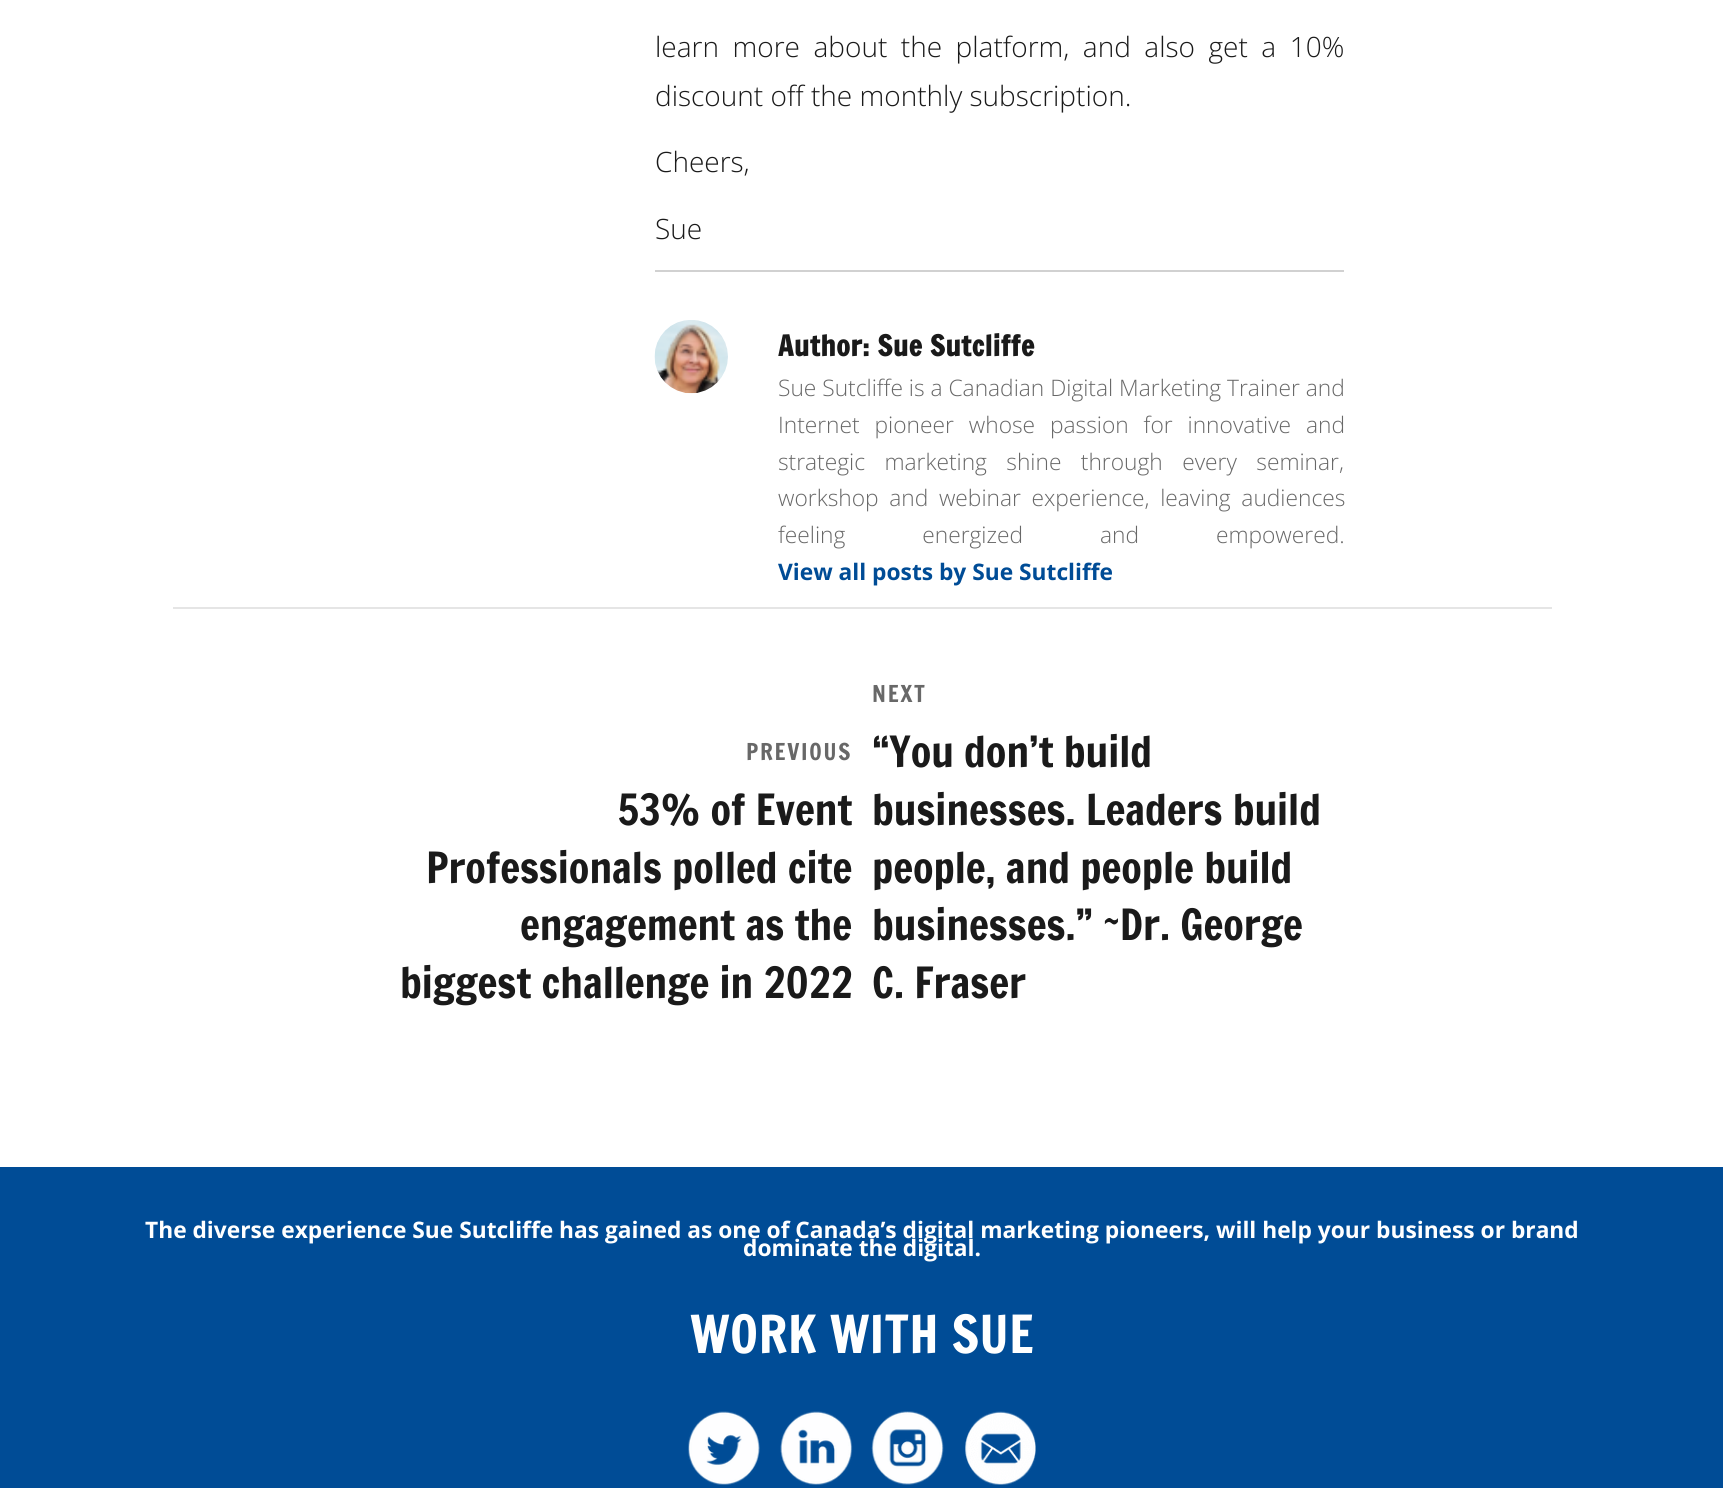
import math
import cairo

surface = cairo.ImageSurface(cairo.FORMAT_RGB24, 1723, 1488)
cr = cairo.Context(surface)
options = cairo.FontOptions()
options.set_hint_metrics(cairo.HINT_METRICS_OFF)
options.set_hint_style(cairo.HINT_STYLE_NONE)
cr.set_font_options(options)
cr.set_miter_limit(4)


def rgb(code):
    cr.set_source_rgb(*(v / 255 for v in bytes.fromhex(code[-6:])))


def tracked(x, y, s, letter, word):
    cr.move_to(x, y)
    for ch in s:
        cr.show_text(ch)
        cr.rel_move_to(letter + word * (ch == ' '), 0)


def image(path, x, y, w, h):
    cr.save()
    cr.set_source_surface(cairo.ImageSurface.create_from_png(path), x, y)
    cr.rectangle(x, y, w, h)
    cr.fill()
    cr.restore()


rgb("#ffffff")
cr.paint()
rgb("#e5e5e5")
cr.rectangle(173, 607, 1379, 2)
cr.fill()
rgb("#d1d1d1")
cr.rectangle(655, 270, 689, 2)
cr.fill()
image("img/1.png", 654, 320, 74, 74)
rgb("#004c96")
cr.rectangle(0, 1167, 1723, 321)
cr.fill()
image("img/2.png", 688, 1411, 72, 74)
image("img/3.png", 780, 1411, 73, 74)
image("img/4.png", 871, 1411, 73, 74)
image("img/5.png", 965, 1411, 71, 74)
cr.select_font_face("Open Sans Light")
cr.set_font_size(28)
rgb("#1a1a1a")
tracked(655, 57, "learn more about the platform, and also get a 10%", 0, 6.25)
for x, y, s in [
    (655, 106, "discount off the monthly subscription."),
    (655, 172, "Cheers,"),
    (655, 239, "Sue"),
]:
    cr.move_to(x, y)
    cr.show_text(s)
cr.select_font_face("Francois One", cairo.FONT_SLANT_NORMAL, cairo.FONT_WEIGHT_BOLD)
tracked(778, 356, "Author: Sue Sutcliffe", 0.6, 0)
cr.select_font_face("Open Sans Light")
cr.set_font_size(22.75)
rgb("#686868")
cr.move_to(778, 396)
cr.show_text("Sue Sutcliffe is a Canadian Digital Marketing Trainer and")
tracked(778, 433, "Internet pioneer whose passion for innovative and", 0, 9)
tracked(778, 470, "strategic marketing shine through every seminar,", 0, 13.5)
tracked(778, 506, "workshop and webinar experience, leaving audiences", 0, 4.75)
tracked(778, 543, "feeling energized and empowered.", 0, 71)
cr.select_font_face("Open Sans", cairo.FONT_SLANT_NORMAL, cairo.FONT_WEIGHT_BOLD)
rgb("#004c96")
cr.move_to(778, 580)
cr.show_text("View all posts by Sue Sutcliffe")
cr.select_font_face("Francois One")
rgb("#686868")
tracked(746, 760, "PREVIOUS", 1.75, 0)
cr.set_font_size(42)
rgb("#1a1a1a")
for x, y, s in [
    (617, 825, "53% of Event"),
    (426, 883, "Professionals polled cite"),
    (520, 940, "engagement as the"),
    (400, 998, "biggest challenge in 2022"),
]:
    cr.move_to(x, y)
    cr.show_text(s)
cr.set_font_size(22.75)
rgb("#686868")
tracked(872, 702, "NEXT", 1.75, 0)
cr.set_font_size(42)
rgb("#1a1a1a")
for x, y, s in [
    (872, 767, "“You don’t build"),
    (872, 825, "businesses. Leaders build"),
    (872, 883, "people, and people build"),
    (872, 940, "businesses.” ~Dr. George"),
    (872, 998, "C. Fraser"),
]:
    cr.move_to(x, y)
    cr.show_text(s)
cr.select_font_face("Open Sans", cairo.FONT_SLANT_NORMAL, cairo.FONT_WEIGHT_BOLD)
cr.set_font_size(22.75)
rgb("#ffffff")
cr.move_to(145, 1238)
cr.show_text("The diverse experience Sue Sutcliffe has gained as one of Canada’s digital marketing pioneers, will help your business or brand")
cr.move_to(743, 1256)
cr.show_text("dominate the digital.")
cr.select_font_face("Francois One")
cr.set_font_size(51.25)
tracked(690, 1353, "WORK WITH SUE", 0.3, 0)
surface.write_to_png("page.png")
